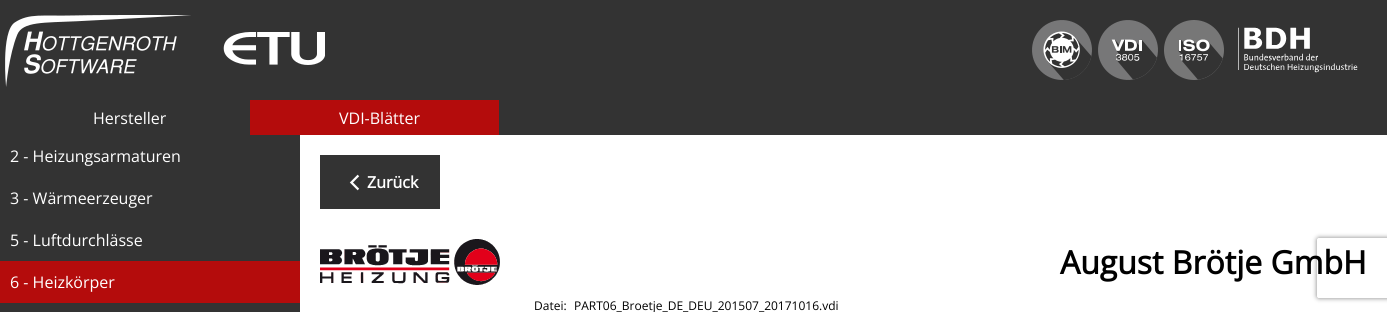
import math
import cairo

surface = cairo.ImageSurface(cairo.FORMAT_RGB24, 1387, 312)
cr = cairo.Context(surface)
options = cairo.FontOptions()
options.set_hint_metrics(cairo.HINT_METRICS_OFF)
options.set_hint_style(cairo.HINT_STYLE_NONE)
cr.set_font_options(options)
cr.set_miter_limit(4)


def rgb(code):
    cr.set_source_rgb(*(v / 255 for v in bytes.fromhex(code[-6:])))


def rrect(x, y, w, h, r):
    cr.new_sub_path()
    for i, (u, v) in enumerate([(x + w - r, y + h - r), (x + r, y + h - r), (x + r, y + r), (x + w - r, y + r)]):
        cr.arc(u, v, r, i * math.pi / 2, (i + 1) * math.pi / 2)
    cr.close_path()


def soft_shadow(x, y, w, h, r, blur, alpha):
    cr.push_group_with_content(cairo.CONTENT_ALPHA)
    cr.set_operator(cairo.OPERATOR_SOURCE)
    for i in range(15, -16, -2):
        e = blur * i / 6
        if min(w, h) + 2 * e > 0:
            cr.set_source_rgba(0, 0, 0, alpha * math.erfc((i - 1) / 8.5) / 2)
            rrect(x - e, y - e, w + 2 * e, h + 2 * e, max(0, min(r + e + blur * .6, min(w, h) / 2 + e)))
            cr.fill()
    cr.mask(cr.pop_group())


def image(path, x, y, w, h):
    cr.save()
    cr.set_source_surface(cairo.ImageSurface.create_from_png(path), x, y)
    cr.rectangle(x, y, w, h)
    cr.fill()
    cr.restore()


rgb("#333333")
cr.paint()
image("img/1.png", 5, 15, 186, 72)
image("img/2.png", 223, 32, 102, 33)
image("img/3.png", 1032, 20, 60, 60)
image("img/4.png", 1098, 20, 60, 60)
image("img/5.png", 1164, 20, 60, 60)
image("img/6.png", 1238, 27, 120, 46)
for x, y, w, h, color in [
    (250, 100, 249, 35, "#b40c0c"),
    (300, 135, 1087, 177, "#ffffff"),
    (0, 261, 300, 42, "#b40c0c"),
    (320, 155, 120, 54, "#333333"),
]:
    rgb(color)
    cr.rectangle(x, y, w, h)
    cr.fill()
image("img/7.png", 349, 174, 11, 17)
cr.save()
cr.set_fill_rule(cairo.FILL_RULE_EVEN_ODD)
cr.new_path()
cr.move_to(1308, 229)
cr.line_to(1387, 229)
cr.line_to(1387, 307)
cr.line_to(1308, 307)
cr.close_path()
cr.move_to(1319, 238)
cr.line_to(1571, 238)
cr.curve_to(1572, 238, 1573, 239, 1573, 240)
cr.line_to(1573, 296)
cr.curve_to(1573, 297, 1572, 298, 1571, 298)
cr.line_to(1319, 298)
cr.curve_to(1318, 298, 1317, 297, 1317, 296)
cr.line_to(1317, 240)
cr.curve_to(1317, 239, 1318, 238, 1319, 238)
cr.close_path()
cr.clip()
rgb("#808080")
soft_shadow(1317, 238, 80, 60, 2, 2.5, 1)
cr.restore()
image("img/8.png", 320, 239, 180, 46)
cr.select_font_face("Open Sans")
cr.set_font_size(16)
rgb("#ffffff")
for x, y, s in [
    (93, 124, "Hersteller"),
    (339, 124, "VDI-Blätter"),
    (10, 162, "2 - Heizungsarmaturen"),
    (10, 204, "3 - Wärmeerzeuger"),
    (10, 246, "5 - Luftdurchlässe"),
    (10, 288, "6 - Heizkörper"),
]:
    cr.move_to(x, y)
    cr.show_text(s)
cr.select_font_face("Open Sans", cairo.FONT_SLANT_NORMAL, cairo.FONT_WEIGHT_BOLD)
cr.move_to(367, 188)
cr.show_text("Zurück")
cr.set_font_size(32)
rgb("#000000")
cr.move_to(1060, 274)
cr.show_text("August Brötje GmbH")
cr.select_font_face("Open Sans")
cr.set_font_size(12)
cr.move_to(534, 310)
cr.show_text("Datei:")
cr.move_to(574, 310)
cr.show_text("PART06_Broetje_DE_DEU_201507_20171016.vdi")
surface.write_to_png("page.png")
